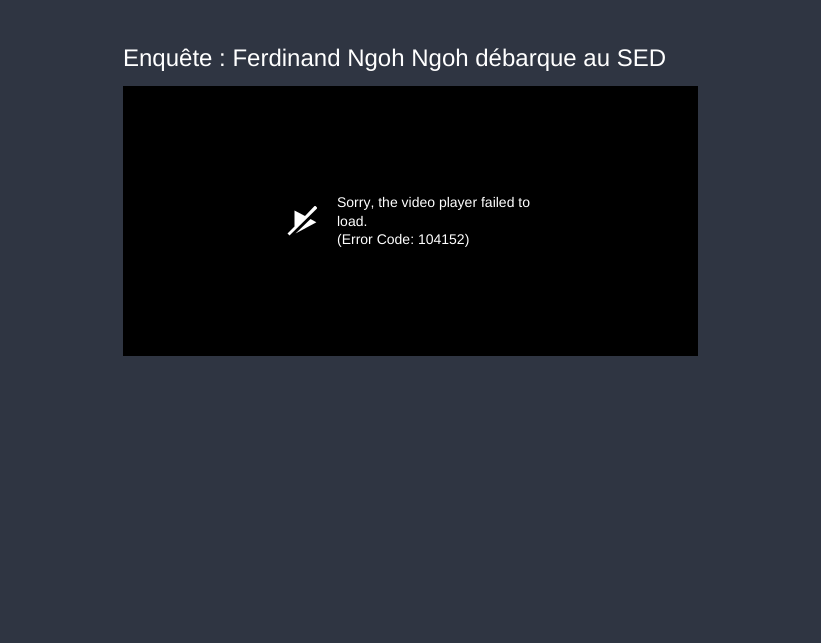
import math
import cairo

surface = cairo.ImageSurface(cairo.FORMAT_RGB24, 821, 643)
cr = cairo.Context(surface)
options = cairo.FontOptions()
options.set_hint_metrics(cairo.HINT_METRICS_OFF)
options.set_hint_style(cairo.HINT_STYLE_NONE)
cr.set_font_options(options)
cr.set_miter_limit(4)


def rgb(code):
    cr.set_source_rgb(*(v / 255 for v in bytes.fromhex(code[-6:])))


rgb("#2f3542")
cr.paint()
rgb("#000000")
cr.rectangle(123, 86, 575, 270)
cr.fill()
cr.save()
cr.rectangle(287, 206, 30, 30)
cr.clip()
rgb("#ffffff")
cr.new_path()
cr.move_to(316, 222.5)
cr.line_to(295.5, 233.5)
cr.line_to(310.5, 219)
cr.curve_to(316, 222, 317, 222.5, 316, 222.5)
cr.close_path()
cr.move_to(315, 205.5)
cr.line_to(305, 216)
cr.line_to(294.5, 210.5)
cr.line_to(294.5, 226.5)
cr.line_to(287.5, 233.5)
cr.line_to(289.5, 235.5)
cr.line_to(317.5, 208)
cr.close_path()
cr.fill()
cr.restore()
cr.select_font_face("Liberation Sans")
cr.set_font_size(24)
rgb("#ffffff")
cr.move_to(123, 66)
cr.show_text("Enquête : Ferdinand Ngoh Ngoh débarque au SED")
cr.set_font_size(14)
for x, y, s in [
    (337, 207, "Sorry, the video player failed to"),
    (337, 226, "load."),
    (337, 244, "(Error Code: 104152)"),
]:
    cr.move_to(x, y)
    cr.show_text(s)
surface.write_to_png("page.png")
